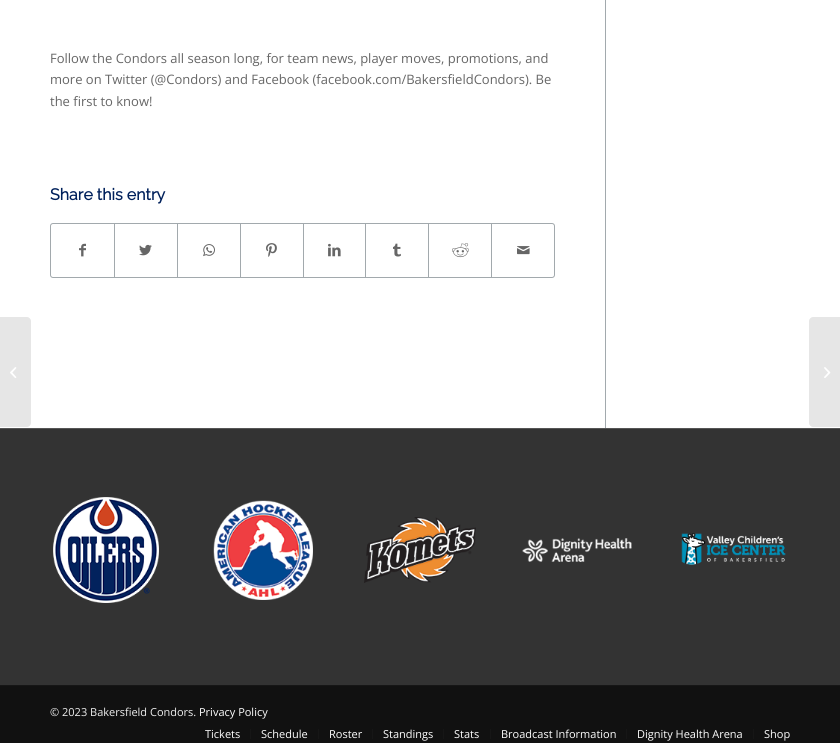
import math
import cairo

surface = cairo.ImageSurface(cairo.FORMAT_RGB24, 840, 743)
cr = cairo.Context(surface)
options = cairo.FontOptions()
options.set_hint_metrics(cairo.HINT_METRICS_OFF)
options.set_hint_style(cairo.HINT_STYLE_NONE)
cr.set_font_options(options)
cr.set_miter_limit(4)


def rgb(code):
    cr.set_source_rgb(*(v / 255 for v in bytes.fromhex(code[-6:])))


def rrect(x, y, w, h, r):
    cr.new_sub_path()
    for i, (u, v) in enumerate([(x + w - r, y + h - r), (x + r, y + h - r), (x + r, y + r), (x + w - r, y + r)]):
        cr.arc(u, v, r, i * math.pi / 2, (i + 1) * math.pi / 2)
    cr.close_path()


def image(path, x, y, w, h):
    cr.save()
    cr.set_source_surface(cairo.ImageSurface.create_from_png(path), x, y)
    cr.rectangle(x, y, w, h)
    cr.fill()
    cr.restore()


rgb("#ffffff")
cr.paint()
rgb("#e6e6e6")
cr.new_path()
cr.move_to(0, 317)
cr.line_to(27, 317)
cr.curve_to(29, 317, 31, 319, 31, 321)
cr.line_to(31, 423)
cr.curve_to(31, 425, 29, 427, 27, 427)
cr.line_to(0, 427)
cr.close_path()
cr.fill()
image("img/1.png", 10, 367, 7, 11)
rgb("#a2a9ad")
cr.rectangle(605, 0, 1, 428)
cr.fill()
rrect(50.5, 223.5, 504, 54, 2.5)
cr.set_line_width(1)
cr.stroke()
image("img/2.png", 79, 243, 7, 14)
cr.rectangle(114, 224, 1, 53)
cr.fill()
image("img/3.png", 139, 244, 13, 12)
cr.rectangle(177, 224, 1, 53)
cr.fill()
image("img/4.png", 203, 244, 12, 13)
cr.rectangle(240, 224, 1, 53)
cr.fill()
image("img/5.png", 266, 243, 11, 14)
cr.rectangle(303, 224, 1, 53)
cr.fill()
image("img/6.png", 328, 243, 13, 14)
cr.rectangle(365, 224, 1, 53)
cr.fill()
image("img/7.png", 393, 243, 8, 14)
cr.rectangle(428, 224, 1, 53)
cr.fill()
image("img/8.png", 452, 243, 17, 15)
cr.rectangle(491, 224, 1, 53)
cr.fill()
image("img/9.png", 517, 246, 13, 9)
rgb("#333333")
cr.rectangle(0, 429, 840, 256)
cr.fill()
rgb("#555555")
cr.rectangle(0, 428, 840, 1)
cr.fill()
image("img/10.png", 53, 497, 106, 106)
image("img/11.png", 213, 500, 100, 100)
image("img/12.png", 364, 517, 112, 66)
image("img/13.png", 522, 538, 110, 24)
image("img/14.png", 681, 533, 105, 32)
for x, y, w, h, color in [
    (0, 686, 840, 57, "#111111"),
    (0, 685, 840, 1, "#161616"),
    (250, 729, 1, 10, "#161616"),
    (318, 729, 1, 10, "#161616"),
    (372, 729, 1, 10, "#161616"),
    (443, 729, 1, 10, "#161616"),
    (490, 729, 1, 10, "#161616"),
    (626, 729, 1, 10, "#161616"),
    (753, 729, 1, 10, "#161616"),
]:
    rgb(color)
    cr.rectangle(x, y, w, h)
    cr.fill()
rgb("#e6e6e6")
cr.new_path()
cr.move_to(813, 317)
cr.line_to(840, 317)
cr.line_to(840, 427)
cr.line_to(813, 427)
cr.curve_to(811, 427, 809, 425, 809, 423)
cr.line_to(809, 321)
cr.curve_to(809, 319, 811, 317, 813, 317)
cr.close_path()
cr.fill()
image("img/15.png", 824, 367, 7, 11)
cr.select_font_face("Open Sans")
cr.set_font_size(13)
rgb("#666666")
for x, y, s in [
    (50, 63, "Follow the Condors all season long, for team news, player moves, promotions, and"),
    (50, 84, "more on Twitter (@Condors) and Facebook (facebook.com/BakersfieldCondors). Be"),
    (50, 106, "the first to know!"),
]:
    cr.move_to(x, y)
    cr.show_text(s)
cr.select_font_face("Raleway", cairo.FONT_SLANT_NORMAL, cairo.FONT_WEIGHT_BOLD)
cr.set_font_size(16)
rgb("#00205b")
cr.move_to(50, 200)
cr.show_text("Share this entry")
cr.select_font_face("Open Sans")
cr.set_font_size(11)
rgb("#eeeeee")
cr.move_to(50, 716)
cr.show_text("© 2023 Bakersfield Condors.")
rgb("#ffffff")
for x, y, s in [
    (199, 716, "Privacy Policy"),
    (205, 738, "Tickets"),
    (261, 738, "Schedule"),
    (329, 738, "Roster"),
    (383, 738, "Standings"),
    (454, 738, "Stats"),
    (501, 738, "Broadcast Information"),
    (637, 738, "Dignity Health Arena"),
    (764, 738, "Shop"),
]:
    cr.move_to(x, y)
    cr.show_text(s)
surface.write_to_png("page.png")
